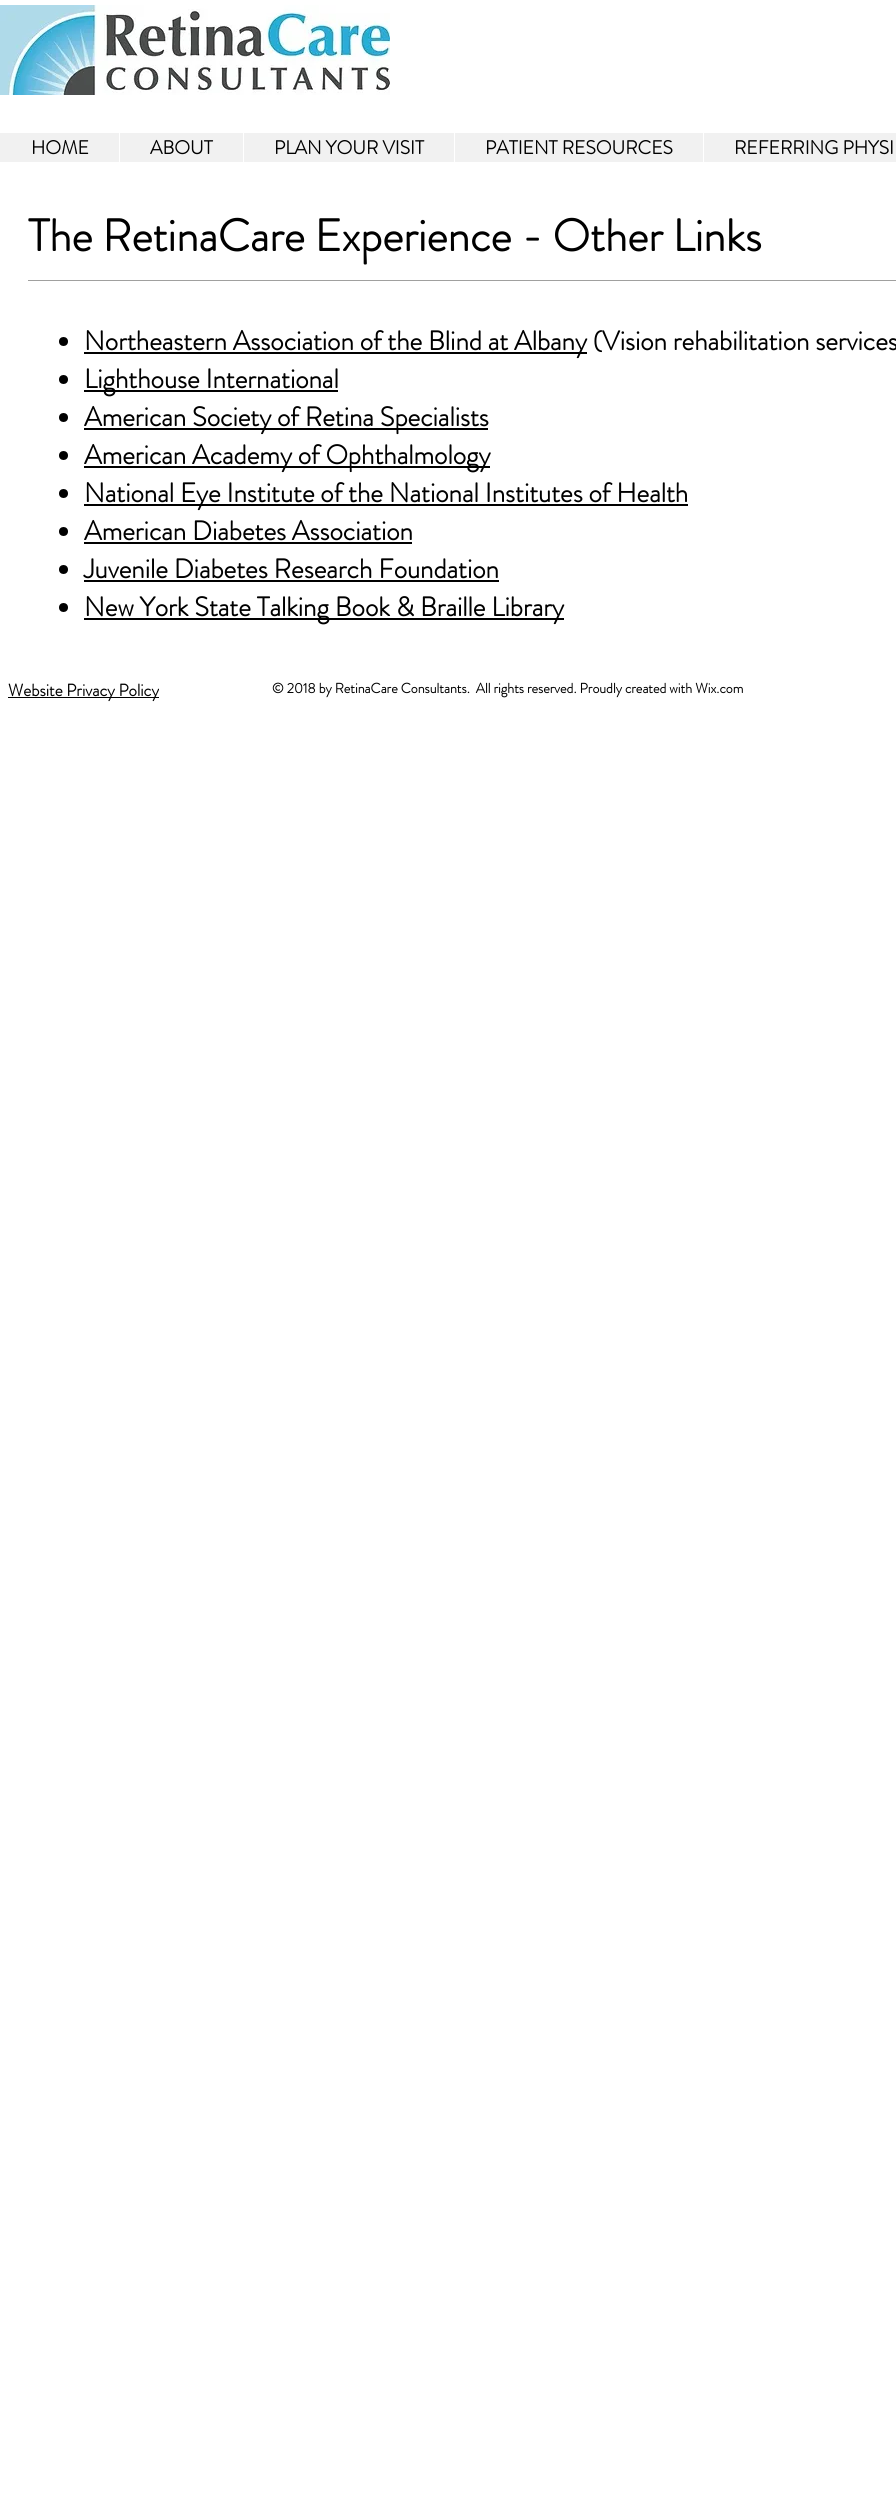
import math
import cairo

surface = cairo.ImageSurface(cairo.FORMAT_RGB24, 896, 2518)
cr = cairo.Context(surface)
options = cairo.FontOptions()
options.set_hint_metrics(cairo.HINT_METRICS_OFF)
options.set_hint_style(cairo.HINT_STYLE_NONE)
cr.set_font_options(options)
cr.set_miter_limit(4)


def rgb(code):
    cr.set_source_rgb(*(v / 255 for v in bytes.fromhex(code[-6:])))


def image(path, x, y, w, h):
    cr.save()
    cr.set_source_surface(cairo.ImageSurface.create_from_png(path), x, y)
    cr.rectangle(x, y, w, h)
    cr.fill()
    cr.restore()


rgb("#ffffff")
cr.paint()
image("img/1.png", 0, 5, 390, 90)
for x, y, w, h, color in [
    (0, 133, 896, 29, "#f1f1f1"),
    (119, 133, 1, 29, "#ffffff"),
    (243, 133, 1, 29, "#ffffff"),
    (454, 133, 1, 29, "#ffffff"),
    (703, 133, 1, 29, "#ffffff"),
    (28, 280, 868, 1, "#a0a09f"),
]:
    rgb(color)
    cr.rectangle(x, y, w, h)
    cr.fill()
rgb("#000000")
cr.arc(63.5, 341.5, 4.5, 0, 2 * math.pi)
cr.fill()
cr.rectangle(84, 352, 503, 2)
cr.fill()
cr.arc(63.5, 379.5, 4.5, 0, 2 * math.pi)
cr.fill()
cr.rectangle(84, 390, 254, 2)
cr.fill()
cr.arc(63.5, 417.5, 4.5, 0, 2 * math.pi)
cr.fill()
cr.rectangle(84, 428, 404, 2)
cr.fill()
cr.arc(63.5, 455.5, 4.5, 0, 2 * math.pi)
cr.fill()
cr.rectangle(84, 466, 406, 2)
cr.fill()
cr.arc(63.5, 493.5, 4.5, 0, 2 * math.pi)
cr.fill()
cr.rectangle(84, 504, 604, 2)
cr.fill()
cr.arc(63.5, 531.5, 4.5, 0, 2 * math.pi)
cr.fill()
cr.rectangle(84, 542, 328, 2)
cr.fill()
cr.arc(63.5, 569.5, 4.5, 0, 2 * math.pi)
cr.fill()
cr.rectangle(84, 580, 415, 2)
cr.fill()
cr.arc(63.5, 607.5, 4.5, 0, 2 * math.pi)
cr.fill()
cr.rectangle(84, 618, 480, 2)
cr.fill()
cr.rectangle(8, 697, 151, 1)
cr.fill()
cr.select_font_face("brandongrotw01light", cairo.FONT_SLANT_NORMAL, cairo.FONT_WEIGHT_BOLD)
cr.set_font_size(19)
for x, y, s in [
    (31, 154, "HOME"),
    (150, 154, "ABOUT"),
    (274, 154, "PLAN YOUR VISIT"),
    (485, 154, "PATIENT RESOURCES"),
    (734, 154, "REFERRING PHYSI"),
]:
    cr.move_to(x, y)
    cr.show_text(s)
cr.set_font_size(45)
cr.move_to(28, 251)
cr.show_text("The RetinaCare Experience - Other Links")
cr.set_font_size(27)
for x, y, s in [
    (84, 350, "Northeastern Association of the Blind at Albany (Vision rehabilitation services"),
    (84, 388, "Lighthouse International"),
    (84, 426, "American Society of Retina Specialists"),
    (84, 464, "American Academy of Ophthalmology"),
    (84, 502, "National Eye Institute of the National Institutes of Health"),
    (84, 540, "American Diabetes Association"),
    (84, 578, "Juvenile Diabetes Research Foundation"),
    (84, 616, "New York State Talking Book & Braille Library"),
]:
    cr.move_to(x, y)
    cr.show_text(s)
cr.set_font_size(17)
cr.move_to(8, 696)
cr.show_text("Website Privacy Policy")
cr.set_font_size(14)
cr.move_to(272, 693)
cr.show_text("© 2018 by RetinaCare Consultants.  All rights reserved. Proudly created with Wix.com")
surface.write_to_png("page.png")
